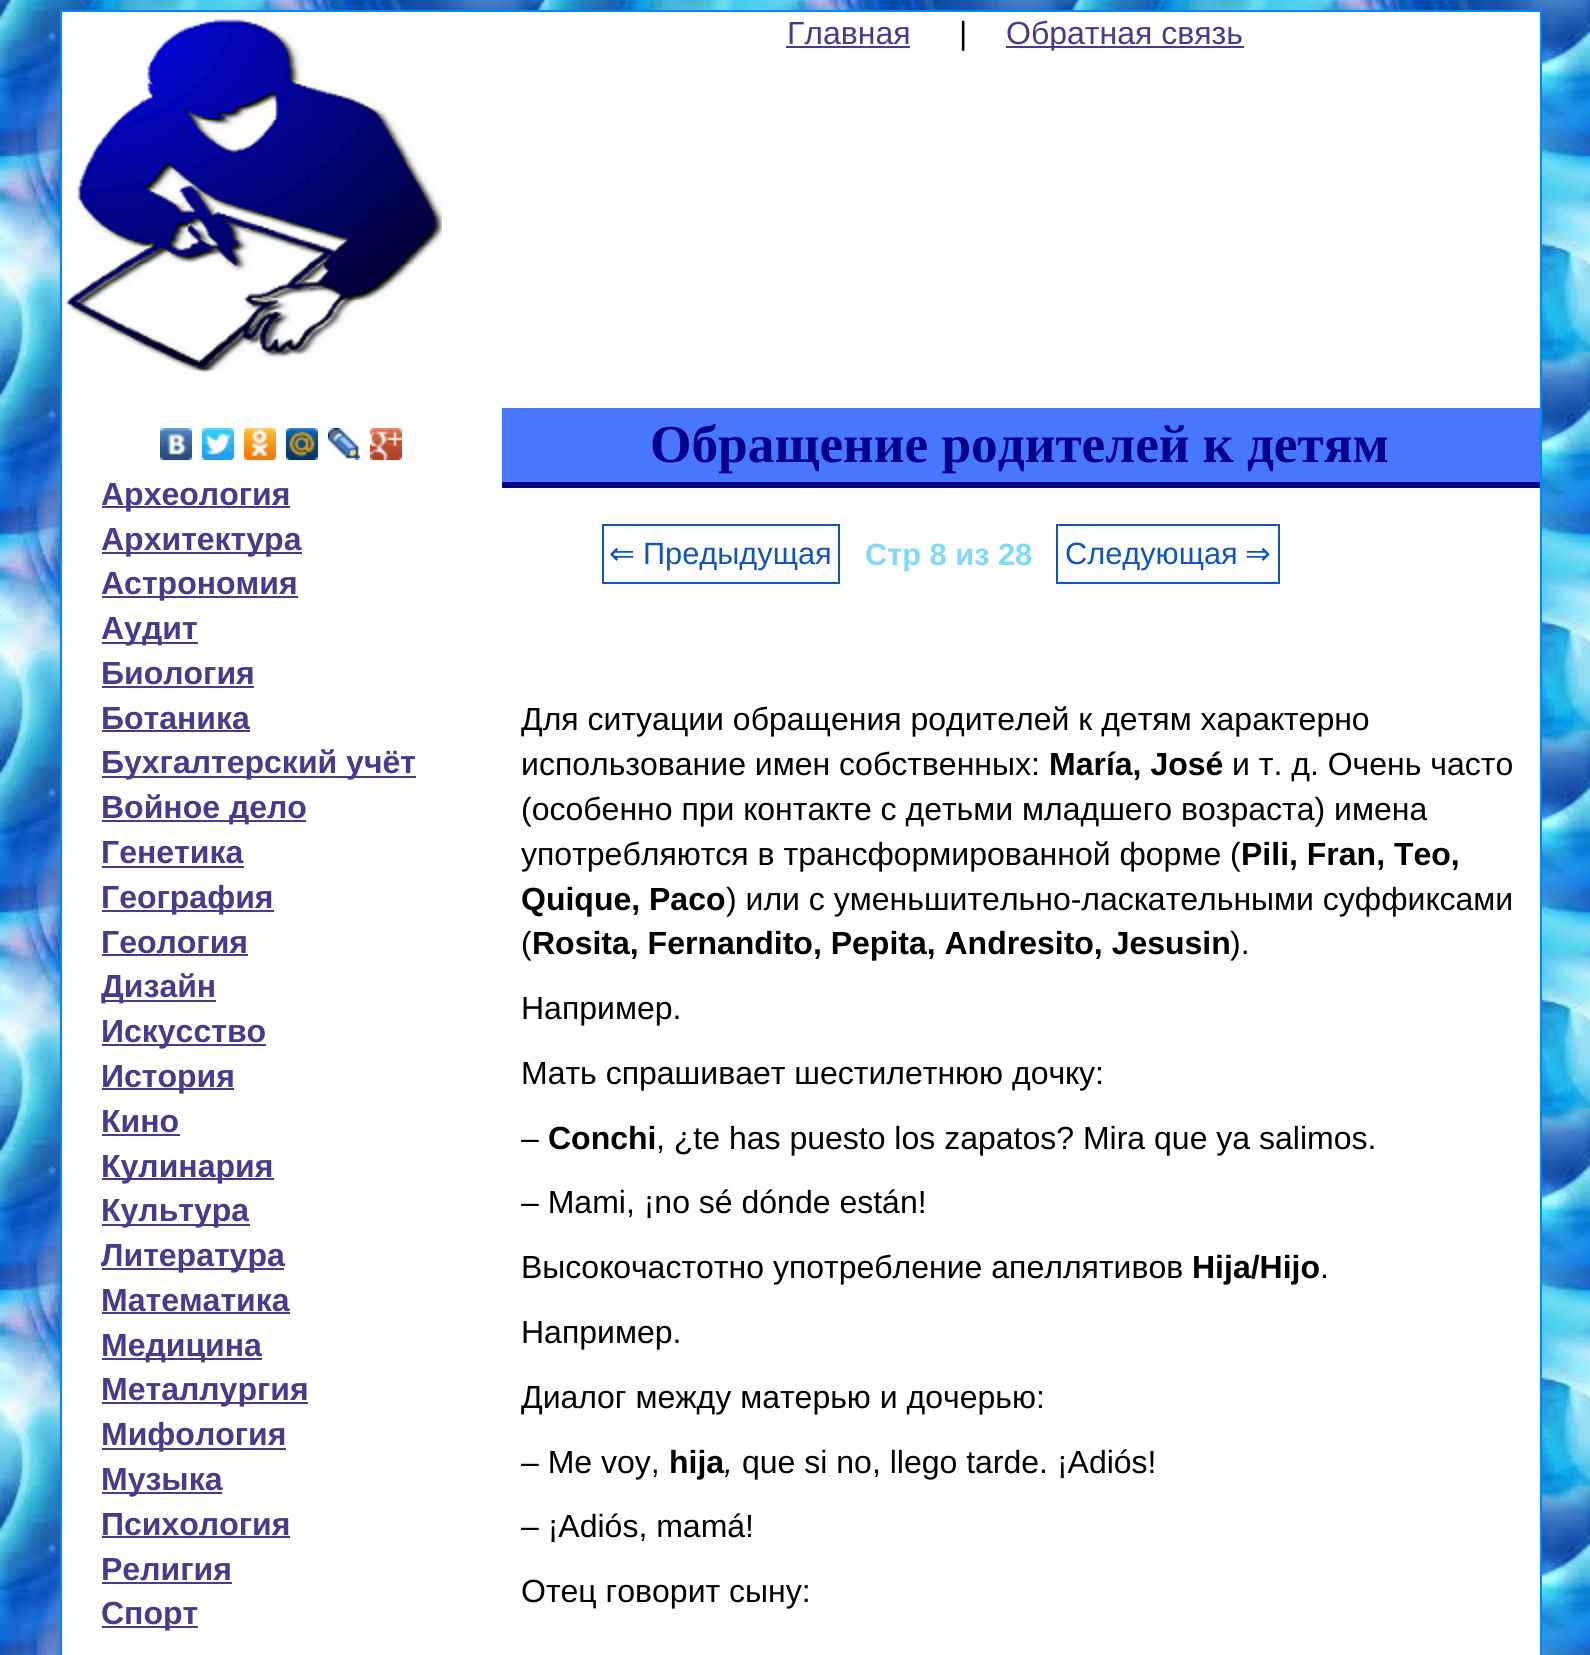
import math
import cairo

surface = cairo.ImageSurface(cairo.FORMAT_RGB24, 1590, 1655)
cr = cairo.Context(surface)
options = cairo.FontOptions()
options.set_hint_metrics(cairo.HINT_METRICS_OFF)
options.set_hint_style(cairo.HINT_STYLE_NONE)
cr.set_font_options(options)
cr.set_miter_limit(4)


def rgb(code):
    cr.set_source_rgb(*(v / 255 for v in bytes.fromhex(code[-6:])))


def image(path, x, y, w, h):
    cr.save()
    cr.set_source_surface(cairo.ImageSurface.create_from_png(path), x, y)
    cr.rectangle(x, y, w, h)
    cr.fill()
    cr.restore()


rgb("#ffffff")
cr.paint()
image("img/1.png", 0, 0, 1590, 1655)
rgb("#ffffff")
cr.rectangle(61, 11, 1480, 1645)
cr.fill_preserve()
rgb("#0088ff")
cr.stroke()
image("img/2.png", 65, 19, 377, 353)
rgb("#473c8b")
cr.rectangle(786, 46, 124, 2)
cr.fill()
cr.rectangle(1006, 46, 238, 2)
cr.fill()
image("img/3.png", 160, 428, 32, 32)
image("img/4.png", 202, 428, 32, 32)
image("img/5.png", 244, 428, 32, 32)
image("img/6.png", 286, 428, 32, 32)
image("img/7.png", 328, 428, 32, 32)
image("img/8.png", 370, 428, 32, 32)
for x, y, w, h, color in [
    (102, 506, 188, 2, "#473c8b"),
    (102, 552, 200, 2, "#473c8b"),
    (102, 596, 196, 2, "#473c8b"),
    (102, 642, 96, 2, "#473c8b"),
    (102, 686, 152, 2, "#473c8b"),
    (102, 730, 148, 2, "#473c8b"),
    (102, 776, 314, 2, "#473c8b"),
    (102, 820, 204, 2, "#473c8b"),
    (102, 866, 142, 2, "#473c8b"),
    (102, 910, 172, 2, "#473c8b"),
    (102, 954, 146, 2, "#473c8b"),
    (102, 1000, 114, 2, "#473c8b"),
    (102, 1044, 164, 2, "#473c8b"),
    (102, 1088, 132, 2, "#473c8b"),
    (102, 1134, 78, 2, "#473c8b"),
    (102, 1178, 172, 2, "#473c8b"),
    (102, 1224, 148, 2, "#473c8b"),
    (102, 1268, 182, 2, "#473c8b"),
    (102, 1312, 188, 2, "#473c8b"),
    (102, 1358, 160, 2, "#473c8b"),
    (102, 1402, 206, 2, "#473c8b"),
    (102, 1448, 184, 2, "#473c8b"),
    (102, 1492, 120, 2, "#473c8b"),
    (102, 1536, 188, 2, "#473c8b"),
    (102, 1582, 130, 2, "#473c8b"),
    (102, 1626, 96, 2, "#473c8b"),
    (502, 408, 1038, 74, "#4876ff"),
    (502, 482, 1038, 6, "#00008b"),
]:
    rgb(color)
    cr.rectangle(x, y, w, h)
    cr.fill()
cr.rectangle(603, 525, 236, 58)
rgb("#1155bb")
cr.stroke()
cr.rectangle(1057, 525, 222, 58)
cr.stroke()
cr.select_font_face("Liberation Sans")
cr.set_font_size(32)
rgb("#473c8b")
cr.move_to(787, 44)
cr.show_text("Главная")
rgb("#000000")
cr.move_to(959, 44)
cr.show_text("|")
rgb("#473c8b")
cr.move_to(1006, 44)
cr.show_text("Обратная связь")
cr.select_font_face("Liberation Sans", cairo.FONT_SLANT_NORMAL, cairo.FONT_WEIGHT_BOLD)
for x, y, s in [
    (101, 505, "Археология"),
    (101, 550, "Архитектура"),
    (101, 594, "Астрономия"),
    (101, 639, "Аудит"),
    (101, 684, "Биология"),
    (101, 729, "Ботаника"),
    (101, 773, "Бухгалтерский учёт"),
    (101, 818, "Войное дело"),
    (101, 863, "Генетика"),
    (101, 908, "География"),
    (101, 953, "Геология"),
    (101, 997, "Дизайн"),
    (101, 1042, "Искусство"),
    (101, 1087, "История"),
    (101, 1132, "Кино"),
    (101, 1177, "Кулинария"),
    (101, 1221, "Культура"),
    (101, 1266, "Литература"),
    (101, 1311, "Математика"),
    (101, 1356, "Медицина"),
    (101, 1400, "Металлургия"),
    (101, 1445, "Мифология"),
    (101, 1490, "Музыка"),
    (101, 1535, "Психология"),
    (101, 1580, "Религия"),
    (101, 1624, "Спорт"),
]:
    cr.move_to(x, y)
    cr.show_text(s)
cr.select_font_face("Liberation Serif", cairo.FONT_SLANT_NORMAL, cairo.FONT_WEIGHT_BOLD)
cr.set_font_size(53.3)
rgb("#00008b")
cr.move_to(650, 462)
cr.show_text("Обращение родителей к детям")
cr.select_font_face("DejaVu Sans")
cr.set_font_size(30.75)
rgb("#1155bb")
cr.move_to(609, 564)
cr.show_text("⇐")
cr.select_font_face("Liberation Sans")
cr.move_to(643, 564)
cr.show_text("Предыдущая")
cr.select_font_face("Liberation Sans", cairo.FONT_SLANT_NORMAL, cairo.FONT_WEIGHT_BOLD)
rgb("#81daf5")
cr.move_to(865, 565)
cr.show_text("Стр 8 из 28")
cr.select_font_face("Liberation Sans")
rgb("#1155bb")
cr.move_to(1065, 564)
cr.show_text("Следующая")
cr.select_font_face("DejaVu Sans")
cr.move_to(1245, 564)
cr.show_text("⇒")
cr.select_font_face("Liberation Sans")
cr.set_font_size(32)
rgb("#000000")
cr.move_to(521, 730)
cr.show_text("Для ситуации обращения родителей к детям характерно")
cr.move_to(521, 775)
cr.show_text("использование имен собственных:")
cr.select_font_face("Liberation Sans", cairo.FONT_SLANT_NORMAL, cairo.FONT_WEIGHT_BOLD)
cr.move_to(1049, 775)
cr.show_text("María, José")
cr.select_font_face("Liberation Sans")
for x, y, s in [
    (1232, 775, "и т. д. Очень часто"),
    (521, 820, "(особенно при контакте с детьми младшего возраста) имена"),
    (521, 865, "употребляются в трансформированной форме ("),
]:
    cr.move_to(x, y)
    cr.show_text(s)
cr.select_font_face("Liberation Sans", cairo.FONT_SLANT_NORMAL, cairo.FONT_WEIGHT_BOLD)
cr.move_to(1241, 865)
cr.show_text("Pili, Fran, Teo,")
cr.move_to(521, 910)
cr.show_text("Quique, Paco")
cr.select_font_face("Liberation Sans")
cr.move_to(726, 910)
cr.show_text(") или с уменьшительно-ласкательными суффиксами")
cr.move_to(521, 954)
cr.show_text("(")
cr.select_font_face("Liberation Sans", cairo.FONT_SLANT_NORMAL, cairo.FONT_WEIGHT_BOLD)
cr.move_to(532, 954)
cr.show_text("Rosita, Fernandito, Pepita, Andresito, Jesusin")
cr.select_font_face("Liberation Sans")
for x, y, s in [
    (1230, 954, ")."),
    (521, 1019, "Например."),
    (521, 1084, "Мать спрашивает шестилетнюю дочку:"),
    (521, 1149, "–"),
]:
    cr.move_to(x, y)
    cr.show_text(s)
cr.select_font_face("Liberation Sans", cairo.FONT_SLANT_NORMAL, cairo.FONT_WEIGHT_BOLD)
cr.move_to(548, 1149)
cr.show_text("Conchi")
cr.select_font_face("Liberation Sans")
for x, y, s in [
    (656, 1149, ", ¿te has puesto los zapatos? Mira que ya salimos."),
    (521, 1213, "– Mami, ¡no sé dónde están!"),
    (521, 1278, "Высокочастотно употребление апеллятивов"),
]:
    cr.move_to(x, y)
    cr.show_text(s)
cr.select_font_face("Liberation Sans", cairo.FONT_SLANT_NORMAL, cairo.FONT_WEIGHT_BOLD)
cr.move_to(1192, 1278)
cr.show_text("Hija/Hijo")
cr.select_font_face("Liberation Sans")
for x, y, s in [
    (1320, 1278, "."),
    (521, 1343, "Например."),
    (521, 1408, "Диалог между матерью и дочерью:"),
    (521, 1473, "– Me voy,"),
]:
    cr.move_to(x, y)
    cr.show_text(s)
cr.select_font_face("Liberation Sans", cairo.FONT_SLANT_NORMAL, cairo.FONT_WEIGHT_BOLD)
cr.move_to(669, 1473)
cr.show_text("hija")
cr.select_font_face("Liberation Sans", cairo.FONT_SLANT_ITALIC)
cr.move_to(724, 1473)
cr.show_text(",")
cr.select_font_face("Liberation Sans")
for x, y, s in [
    (742, 1473, "que si no, llego tarde. ¡Adiós!"),
    (521, 1537, "– ¡Adiós, mamá!"),
    (521, 1602, "Отец говорит сыну:"),
]:
    cr.move_to(x, y)
    cr.show_text(s)
surface.write_to_png("page.png")
